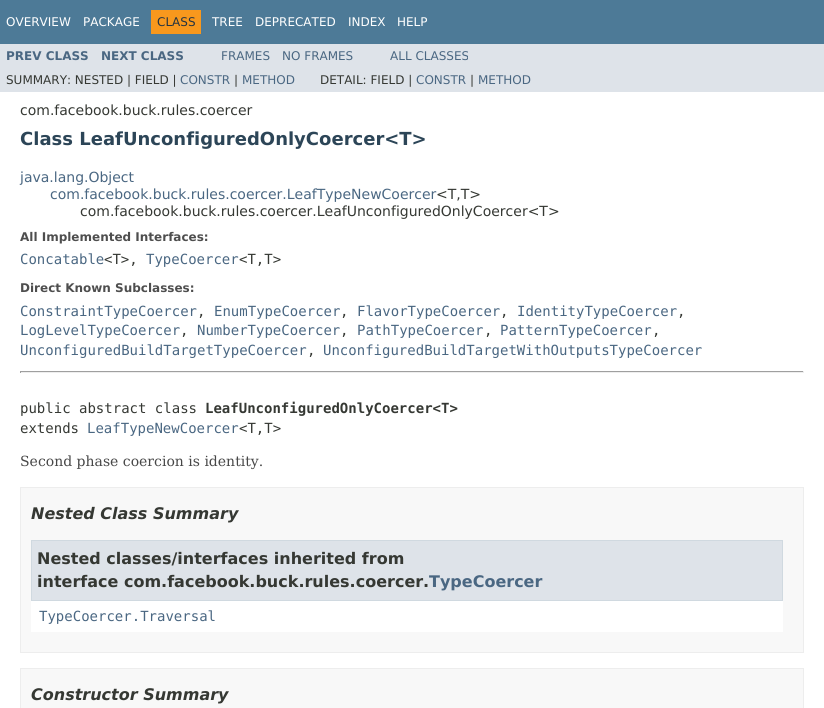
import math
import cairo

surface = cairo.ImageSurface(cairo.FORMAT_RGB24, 824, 708)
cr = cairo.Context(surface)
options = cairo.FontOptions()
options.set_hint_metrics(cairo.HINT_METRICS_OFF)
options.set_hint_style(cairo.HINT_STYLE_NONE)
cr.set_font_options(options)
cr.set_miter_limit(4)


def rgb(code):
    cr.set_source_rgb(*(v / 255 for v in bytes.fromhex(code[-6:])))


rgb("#ffffff")
cr.paint()
for x, y, w, h, color in [
    (0, 0, 824, 44, "#4d7a97"),
    (151, 10, 50, 24, "#f8981d"),
    (0, 44, 824, 48, "#dee3e9"),
    (20, 371, 784, 1, "#9f9f9f"),
    (803, 371, 1, 2, "#eeeeee"),
    (20, 372, 784, 1, "#eeeeee"),
    (20, 371, 1, 2, "#9f9f9f"),
]:
    rgb(color)
    cr.rectangle(x, y, w, h)
    cr.fill()
rgb("#f8f8f8")
cr.rectangle(20.5, 487.5, 783, 165)
cr.fill_preserve()
rgb("#ededed")
cr.set_line_width(1)
cr.stroke()
rgb("#ffffff")
cr.rectangle(31, 601, 752, 31)
cr.fill()
rgb("#dee3e9")
cr.rectangle(31.5, 540.5, 751, 60)
cr.fill_preserve()
rgb("#d0d9e0")
cr.stroke()
rgb("#f8f8f8")
cr.rectangle(20.5, 668.5, 783, 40)
cr.fill_preserve()
rgb("#ededed")
cr.stroke()
cr.select_font_face("DejaVu Sans")
cr.set_font_size(12)
rgb("#ffffff")
cr.move_to(6, 26)
cr.show_text("OVERVIEW")
cr.move_to(83, 26)
cr.show_text("PACKAGE")
rgb("#253441")
cr.move_to(157, 26)
cr.show_text("CLASS")
rgb("#ffffff")
for x, y, s in [
    (212, 26, "TREE"),
    (255, 26, "DEPRECATED"),
    (348, 26, "INDEX"),
    (397, 26, "HELP"),
]:
    cr.move_to(x, y)
    cr.show_text(s)
cr.select_font_face("DejaVu Sans", cairo.FONT_SLANT_NORMAL, cairo.FONT_WEIGHT_BOLD)
rgb("#4a6782")
cr.move_to(6, 60)
cr.show_text("PREV CLASS")
cr.move_to(101, 60)
cr.show_text("NEXT CLASS")
cr.select_font_face("DejaVu Sans")
for x, y, s in [
    (221, 60, "FRAMES"),
    (282, 60, "NO FRAMES"),
    (390, 60, "ALL CLASSES"),
]:
    cr.move_to(x, y)
    cr.show_text(s)
rgb("#353833")
cr.move_to(6, 84)
cr.show_text("SUMMARY: NESTED | FIELD |")
rgb("#4a6782")
cr.move_to(180, 84)
cr.show_text("CONSTR")
rgb("#353833")
cr.move_to(234, 84)
cr.show_text("|")
rgb("#4a6782")
cr.move_to(242, 84)
cr.show_text("METHOD")
rgb("#353833")
cr.move_to(320, 84)
cr.show_text("DETAIL: FIELD |")
rgb("#4a6782")
cr.move_to(416, 84)
cr.show_text("CONSTR")
rgb("#353833")
cr.move_to(470, 84)
cr.show_text("|")
rgb("#4a6782")
cr.move_to(478, 84)
cr.show_text("METHOD")
cr.set_font_size(14)
rgb("#353833")
cr.move_to(20, 115)
cr.show_text("com.facebook.buck.rules.coercer")
cr.select_font_face("DejaVu Sans", cairo.FONT_SLANT_NORMAL, cairo.FONT_WEIGHT_BOLD)
cr.set_font_size(18)
rgb("#2c4557")
cr.move_to(20, 145)
cr.show_text("Class LeafUnconfiguredOnlyCoercer<T>")
cr.select_font_face("DejaVu Sans")
cr.set_font_size(14)
rgb("#4a6782")
cr.move_to(20, 182)
cr.show_text("java.lang.Object")
cr.move_to(50, 199)
cr.show_text("com.facebook.buck.rules.coercer.LeafTypeNewCoercer")
rgb("#353833")
cr.move_to(436, 199)
cr.show_text("<T,T>")
cr.move_to(80, 216)
cr.show_text("com.facebook.buck.rules.coercer.LeafUnconfiguredOnlyCoercer<T>")
cr.select_font_face("DejaVu Sans", cairo.FONT_SLANT_NORMAL, cairo.FONT_WEIGHT_BOLD)
cr.set_font_size(12)
rgb("#4e4e4e")
cr.move_to(20, 241)
cr.show_text("All Implemented Interfaces:")
cr.select_font_face("DejaVu Sans Mono")
cr.set_font_size(14)
rgb("#4a6782")
cr.move_to(20, 264)
cr.show_text("Concatable")
rgb("#353833")
cr.move_to(104, 264)
cr.show_text("<T>,")
rgb("#4a6782")
cr.move_to(146, 264)
cr.show_text("TypeCoercer")
rgb("#353833")
cr.move_to(239, 264)
cr.show_text("<T,T>")
cr.select_font_face("DejaVu Sans", cairo.FONT_SLANT_NORMAL, cairo.FONT_WEIGHT_BOLD)
cr.set_font_size(12)
rgb("#4e4e4e")
cr.move_to(20, 292)
cr.show_text("Direct Known Subclasses:")
cr.select_font_face("DejaVu Sans Mono")
cr.set_font_size(14)
rgb("#4a6782")
cr.move_to(20, 316)
cr.show_text("ConstraintTypeCoercer")
rgb("#353833")
cr.move_to(197, 316)
cr.show_text(",")
rgb("#4a6782")
cr.move_to(214, 316)
cr.show_text("EnumTypeCoercer")
rgb("#353833")
cr.move_to(340, 316)
cr.show_text(",")
rgb("#4a6782")
cr.move_to(357, 316)
cr.show_text("FlavorTypeCoercer")
rgb("#353833")
cr.move_to(500, 316)
cr.show_text(",")
rgb("#4a6782")
cr.move_to(517, 316)
cr.show_text("IdentityTypeCoercer")
rgb("#353833")
cr.move_to(677, 316)
cr.show_text(",")
rgb("#4a6782")
cr.move_to(20, 335)
cr.show_text("LogLevelTypeCoercer")
rgb("#353833")
cr.move_to(180, 335)
cr.show_text(",")
rgb("#4a6782")
cr.move_to(197, 335)
cr.show_text("NumberTypeCoercer")
rgb("#353833")
cr.move_to(340, 335)
cr.show_text(",")
rgb("#4a6782")
cr.move_to(357, 335)
cr.show_text("PathTypeCoercer")
rgb("#353833")
cr.move_to(484, 335)
cr.show_text(",")
rgb("#4a6782")
cr.move_to(500, 335)
cr.show_text("PatternTypeCoercer")
rgb("#353833")
cr.move_to(652, 335)
cr.show_text(",")
rgb("#4a6782")
cr.move_to(20, 355)
cr.show_text("UnconfiguredBuildTargetTypeCoercer")
rgb("#353833")
cr.move_to(307, 355)
cr.show_text(",")
rgb("#4a6782")
cr.move_to(323, 355)
cr.show_text("UnconfiguredBuildTargetWithOutputsTypeCoercer")
rgb("#353833")
cr.move_to(20, 413)
cr.show_text("public abstract class")
cr.select_font_face("DejaVu Sans Mono", cairo.FONT_SLANT_NORMAL, cairo.FONT_WEIGHT_BOLD)
cr.move_to(205, 413)
cr.show_text("LeafUnconfiguredOnlyCoercer<T>")
cr.select_font_face("DejaVu Sans Mono")
cr.move_to(20, 433)
cr.show_text("extends")
rgb("#4a6782")
cr.move_to(87, 433)
cr.show_text("LeafTypeNewCoercer")
rgb("#353833")
cr.move_to(239, 433)
cr.show_text("<T,T>")
cr.select_font_face("DejaVu Serif")
rgb("#474747")
cr.move_to(20, 466)
cr.show_text("Second phase coercion is identity.")
cr.select_font_face("DejaVu Sans", cairo.FONT_SLANT_ITALIC, cairo.FONT_WEIGHT_BOLD)
cr.set_font_size(16)
rgb("#353833")
cr.move_to(31, 519)
cr.show_text("Nested Class Summary")
cr.select_font_face("DejaVu Sans", cairo.FONT_SLANT_NORMAL, cairo.FONT_WEIGHT_BOLD)
cr.move_to(37, 564)
cr.show_text("Nested classes/interfaces inherited from")
cr.move_to(37, 587)
cr.show_text("interface com.facebook.buck.rules.coercer.")
rgb("#4a6782")
cr.move_to(429, 587)
cr.show_text("TypeCoercer")
cr.select_font_face("DejaVu Sans Mono")
cr.set_font_size(14)
cr.move_to(39, 621)
cr.show_text("TypeCoercer.Traversal")
cr.select_font_face("DejaVu Sans", cairo.FONT_SLANT_ITALIC, cairo.FONT_WEIGHT_BOLD)
cr.set_font_size(16)
rgb("#353833")
cr.move_to(31, 700)
cr.show_text("Constructor Summary")
surface.write_to_png("page.png")
